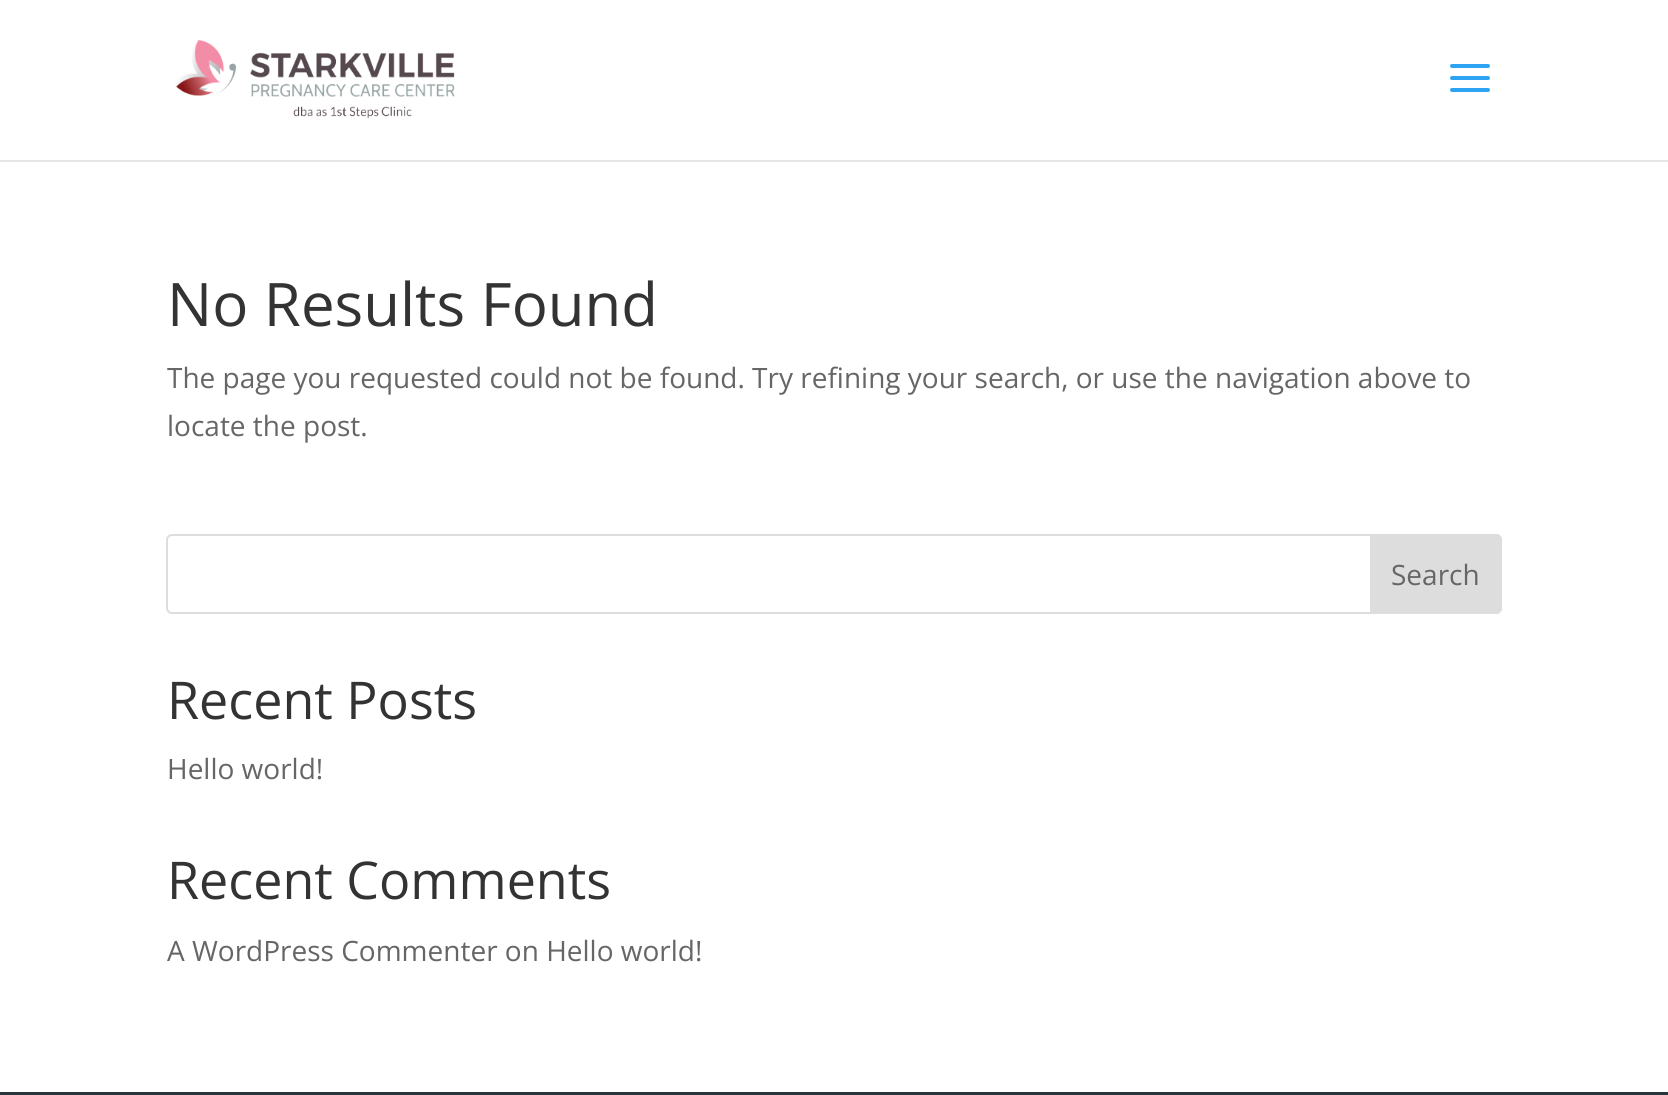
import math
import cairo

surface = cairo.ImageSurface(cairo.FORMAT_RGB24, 1668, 1095)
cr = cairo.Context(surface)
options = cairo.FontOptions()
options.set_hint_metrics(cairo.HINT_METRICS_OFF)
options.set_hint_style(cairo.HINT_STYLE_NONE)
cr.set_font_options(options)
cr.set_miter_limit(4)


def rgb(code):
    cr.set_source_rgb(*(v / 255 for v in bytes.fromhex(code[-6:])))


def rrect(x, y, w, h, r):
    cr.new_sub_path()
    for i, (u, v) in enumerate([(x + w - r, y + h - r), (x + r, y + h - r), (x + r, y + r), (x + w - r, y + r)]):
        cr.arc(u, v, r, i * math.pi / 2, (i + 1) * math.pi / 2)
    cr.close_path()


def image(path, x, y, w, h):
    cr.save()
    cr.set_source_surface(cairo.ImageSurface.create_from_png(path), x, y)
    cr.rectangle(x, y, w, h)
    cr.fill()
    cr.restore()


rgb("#ffffff")
cr.paint()
rgb("#e6e6e6")
cr.rectangle(0, 160, 1668, 2)
cr.fill()
image("img/1.png", 175, 39, 280, 80)
image("img/2.png", 1450, 64, 40, 28)
rrect(167, 535, 1334, 78, 5)
rgb("#dddddd")
cr.stroke()
cr.new_path()
cr.move_to(1371, 535)
cr.line_to(1496, 535)
cr.curve_to(1499, 535, 1501, 537, 1501, 540)
cr.line_to(1501, 608)
cr.curve_to(1501, 611, 1499, 613, 1496, 613)
cr.line_to(1371, 613)
cr.close_path()
cr.fill_preserve()
cr.stroke()
rgb("#27363c")
cr.rectangle(0, 1092, 1668, 3)
cr.fill()
cr.select_font_face("Open Sans")
cr.set_font_size(60)
rgb("#333333")
cr.move_to(167, 326)
cr.show_text("No Results Found")
cr.set_font_size(28)
rgb("#666666")
for x, y, s in [
    (167, 388, "The page you requested could not be found. Try refining your search, or use the navigation above to"),
    (167, 436, "locate the post."),
    (1391, 585, "Search"),
]:
    cr.move_to(x, y)
    cr.show_text(s)
cr.set_font_size(52)
rgb("#333333")
cr.move_to(167, 719)
cr.show_text("Recent Posts")
cr.set_font_size(28)
rgb("#666666")
cr.move_to(167, 779)
cr.show_text("Hello world!")
cr.set_font_size(52)
rgb("#333333")
cr.move_to(167, 899)
cr.show_text("Recent Comments")
cr.set_font_size(28)
rgb("#666666")
cr.move_to(167, 961)
cr.show_text("A WordPress Commenter on Hello world!")
surface.write_to_png("page.png")
